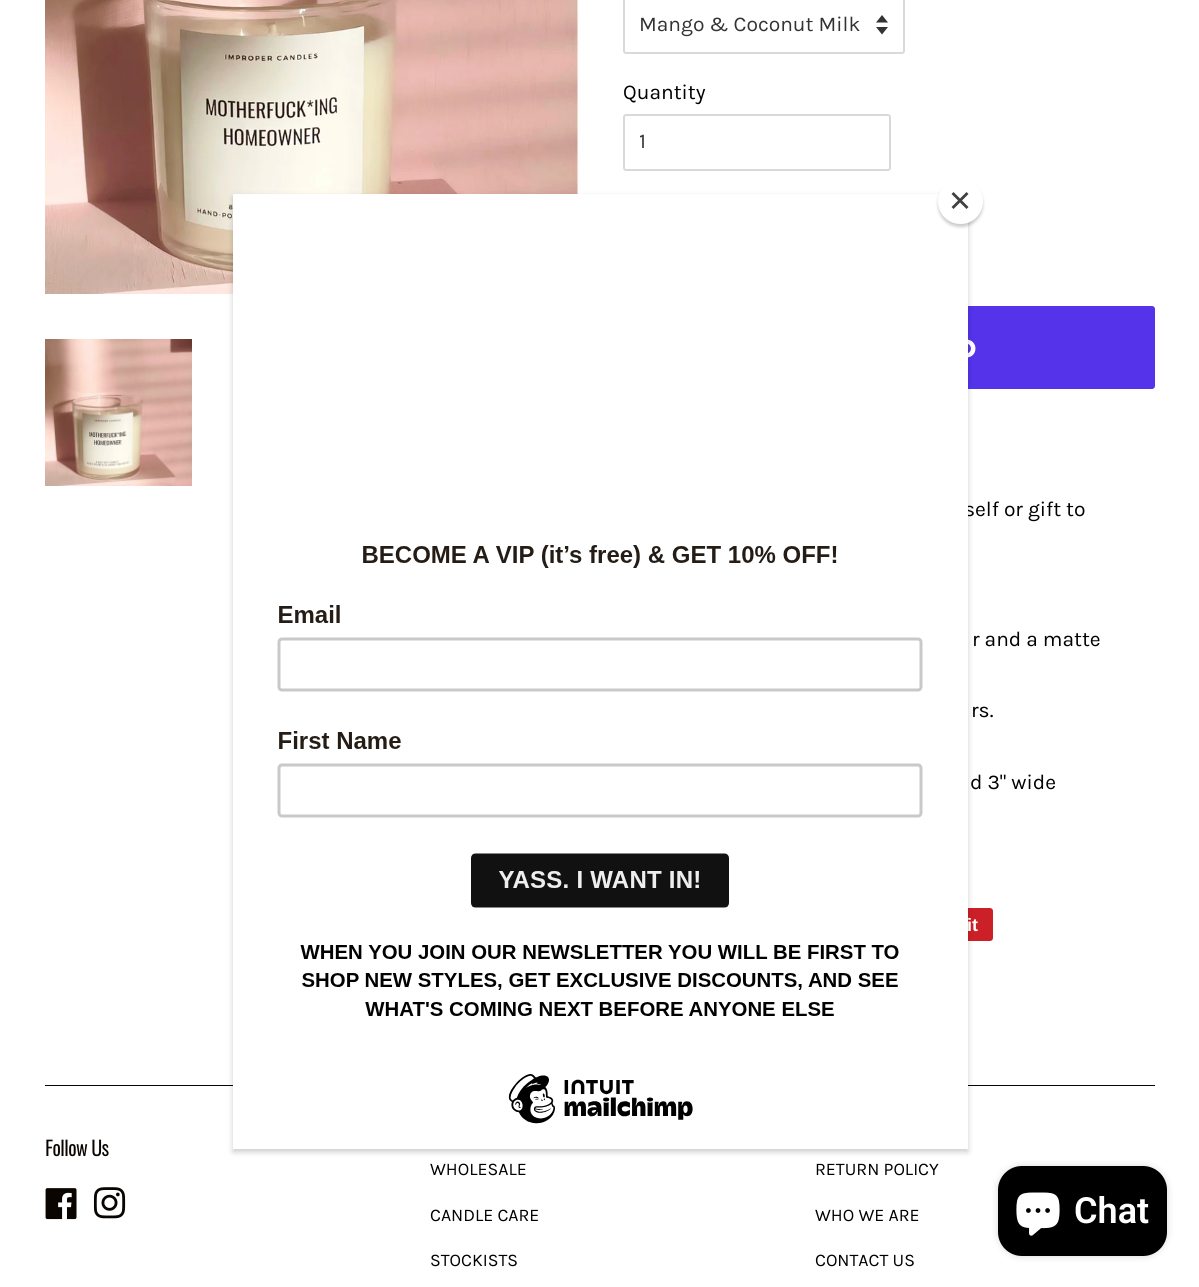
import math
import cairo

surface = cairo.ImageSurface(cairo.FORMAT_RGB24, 1199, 1287)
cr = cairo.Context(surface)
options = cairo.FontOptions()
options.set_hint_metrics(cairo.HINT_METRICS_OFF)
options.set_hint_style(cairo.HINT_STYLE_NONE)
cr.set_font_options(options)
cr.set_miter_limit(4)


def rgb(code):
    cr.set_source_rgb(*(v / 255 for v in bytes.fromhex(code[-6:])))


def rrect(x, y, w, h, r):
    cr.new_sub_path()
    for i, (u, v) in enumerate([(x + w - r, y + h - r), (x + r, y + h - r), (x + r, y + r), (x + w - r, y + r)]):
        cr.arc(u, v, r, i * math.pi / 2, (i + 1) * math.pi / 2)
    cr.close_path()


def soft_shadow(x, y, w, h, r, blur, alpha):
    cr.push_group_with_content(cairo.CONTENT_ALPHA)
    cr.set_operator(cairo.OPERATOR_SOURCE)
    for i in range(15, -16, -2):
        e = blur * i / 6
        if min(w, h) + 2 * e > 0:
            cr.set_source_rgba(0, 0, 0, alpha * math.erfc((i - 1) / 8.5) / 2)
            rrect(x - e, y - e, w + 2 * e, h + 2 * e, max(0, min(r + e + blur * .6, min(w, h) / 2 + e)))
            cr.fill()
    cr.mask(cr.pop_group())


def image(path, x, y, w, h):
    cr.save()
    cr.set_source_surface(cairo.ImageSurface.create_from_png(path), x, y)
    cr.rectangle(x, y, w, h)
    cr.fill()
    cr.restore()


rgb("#ffffff")
cr.paint()
image("img/1.png", 45, 0, 533, 294)
image("img/2.png", 45, 339, 147, 147)
image("img/3.png", 876, 15, 12, 20)
rrect(624, -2, 280, 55, 2)
rgb("#d9d9d9")
cr.stroke()
rrect(624, 115, 266, 55, 2)
cr.stroke()
rgb("#5433eb")
rrect(623, 306, 532, 83, 3)
cr.fill()
image("img/4.png", 968, 339, 8, 19)
rgb("#cb2027")
rrect(888, 908, 105, 33, 3)
cr.fill()
rgb("#0a0500")
cr.rectangle(45, 1085, 1110, 1)
cr.fill()
rgb("#000000")
soft_shadow(233, 197, 735, 955, 0, 3, 0.2)
image("img/6.png", 45, 1188, 32, 32)
image("img/7.png", 93, 1187, 33, 32)
soft_shadow(998, 1166, 169, 90, 24, 4, 0.15)
rgb("#000000")
rrect(998, 1166, 169, 90, 24)
cr.fill()
image("img/8.png", 1016, 1192, 44, 44)
cr.select_font_face("Karla")
cr.set_font_size(21)
rgb("#333333")
cr.move_to(639, 31)
cr.show_text("Mango & Coconut Milk")
rgb("#000000")
cr.move_to(623, 99)
cr.show_text("Quantity")
rgb("#333333")
cr.move_to(639, 148)
cr.show_text("1")
rgb("#000000")
for x, y, s in [
    (964, 516, "self or gift to"),
    (972, 646, "r and a matte"),
    (971, 717, "rs."),
    (970, 789, "d 3\" wide"),
]:
    cr.move_to(x, y)
    cr.show_text(s)
cr.select_font_face("Liberation Sans", cairo.FONT_SLANT_NORMAL, cairo.FONT_WEIGHT_BOLD)
cr.set_font_size(18)
rgb("#ffffff")
cr.move_to(967, 931)
cr.show_text("it")
image("img/5.png", 233, 194, 735, 955)
rgb("#000000")
soft_shadow(938, 182, 45, 45, 22.5, 1.5, 0.2)
rgb("#ffffff")
cr.arc(960.5, 201.5, 22.5, 0, 2 * math.pi)
cr.fill()
rgb("#414141")
cr.new_path()
cr.move_to(966.5, 192)
cr.line_to(968.5, 194)
cr.line_to(953.5, 209)
cr.line_to(951.5, 207)
cr.close_path()
cr.fill()
cr.new_path()
cr.move_to(951.5, 194)
cr.line_to(953.5, 192)
cr.line_to(968.5, 207)
cr.line_to(966.5, 209)
cr.close_path()
cr.fill()
cr.select_font_face("Oswald", cairo.FONT_SLANT_NORMAL, cairo.FONT_WEIGHT_BOLD)
cr.set_font_size(19.5)
rgb("#0a0500")
cr.move_to(45, 1156)
cr.show_text("Follow Us")
cr.select_font_face("Karla")
cr.set_font_size(17.75)
rgb("#000000")
for x, y, s in [
    (430, 1175, "WHOLESALE"),
    (430, 1221, "CANDLE CARE"),
    (430, 1266, "STOCKISTS"),
    (815, 1175, "RETURN POLICY"),
    (815, 1221, "WHO WE ARE"),
    (815, 1266, "CONTACT US"),
]:
    cr.move_to(x, y)
    cr.show_text(s)
cr.select_font_face("Roboto SemiBold")
cr.set_font_size(36)
rgb("#ffffff")
cr.move_to(1074, 1223)
cr.show_text("Chat")
surface.write_to_png("page.png")
